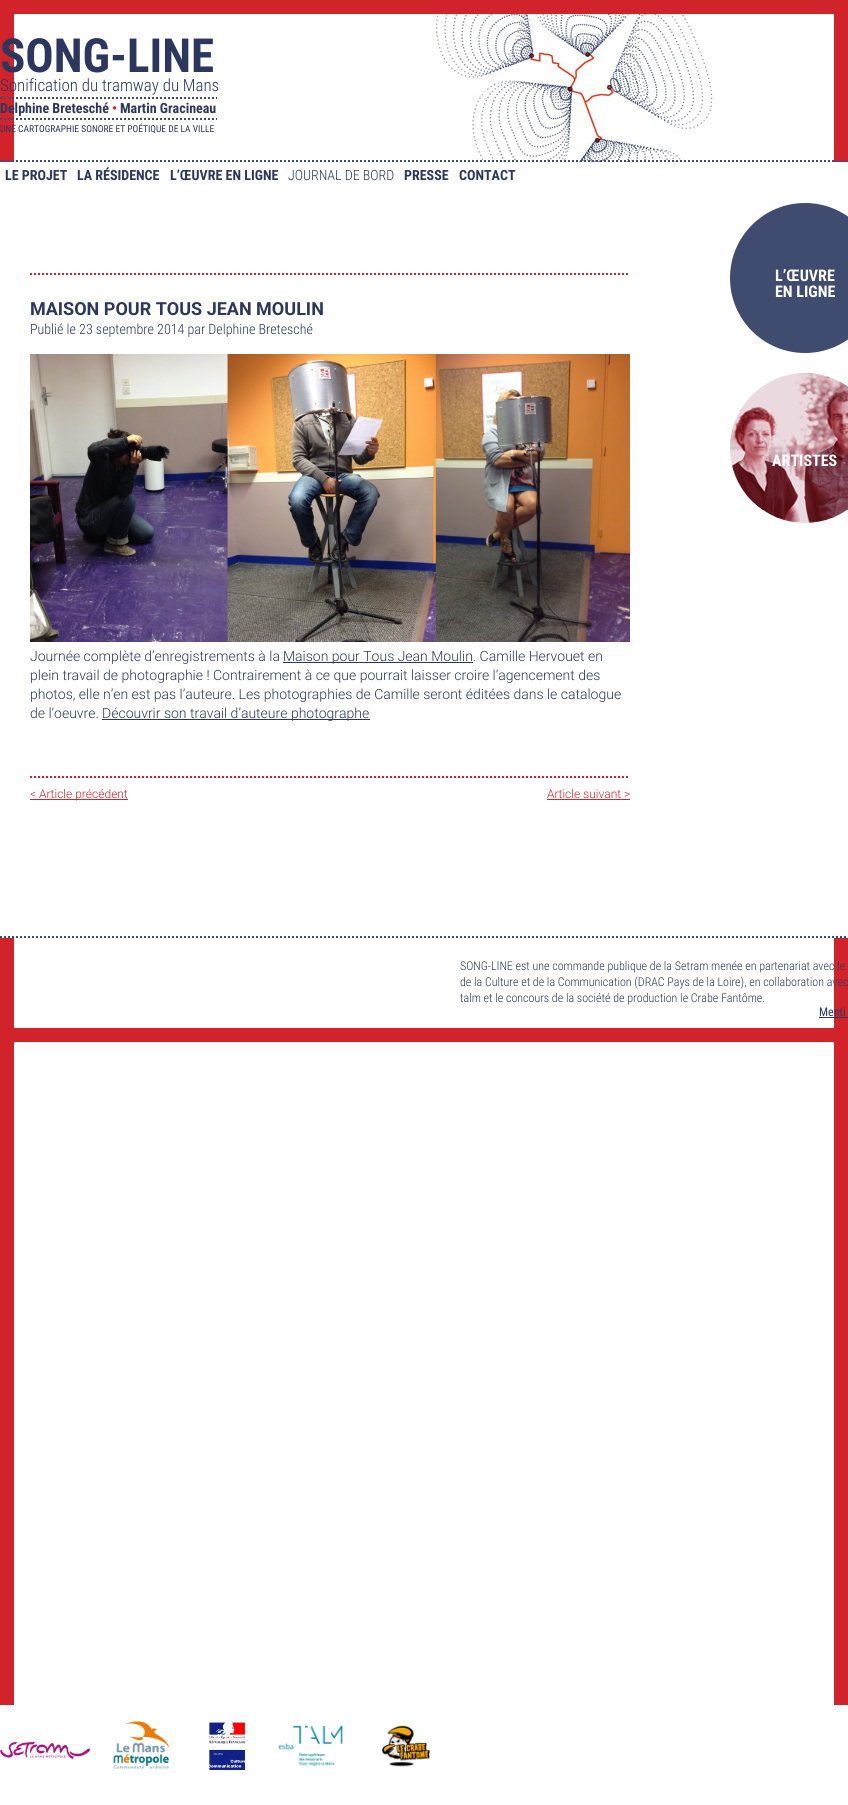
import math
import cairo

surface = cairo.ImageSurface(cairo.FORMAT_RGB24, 848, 1805)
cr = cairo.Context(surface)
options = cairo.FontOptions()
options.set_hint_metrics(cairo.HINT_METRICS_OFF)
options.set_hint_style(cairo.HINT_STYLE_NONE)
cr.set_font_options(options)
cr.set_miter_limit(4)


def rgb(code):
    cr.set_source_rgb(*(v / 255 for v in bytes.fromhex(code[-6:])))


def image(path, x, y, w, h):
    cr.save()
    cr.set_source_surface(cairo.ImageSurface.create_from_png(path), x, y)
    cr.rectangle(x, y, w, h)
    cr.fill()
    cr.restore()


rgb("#ffffff")
cr.paint()
for x, y, w, h, color in [
    (0, 0, 848, 14, "#d2232a"),
    (834, 14, 14, 1691, "#d2232a"),
    (0, 14, 14, 1691, "#d2232a"),
]:
    rgb(color)
    cr.rectangle(x, y, w, h)
    cr.fill()
image("img/1.png", 433, 14, 281, 148)
cr.new_path()
cr.move_to(0, 161)
cr.line_to(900, 161)
rgb("#404b70")
cr.set_dash([2, 2])
cr.stroke()
cr.new_path()
cr.move_to(0, 98)
cr.line_to(217, 98)
cr.stroke()
cr.new_path()
cr.move_to(0, 119)
cr.line_to(217, 119)
cr.stroke()
rgb("#ffffff")
cr.rectangle(0, 162, 848, 776)
cr.fill()
cr.new_path()
cr.move_to(0, 937)
cr.line_to(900, 937)
rgb("#404b70")
cr.stroke()
cr.new_path()
cr.move_to(30, 274)
cr.line_to(630, 274)
rgb("#d2232a")
cr.stroke()
cr.new_path()
cr.move_to(30, 777)
cr.line_to(630, 777)
cr.stroke()
image("img/2.png", 30, 354, 600, 288)
for x, y, w, h, color in [
    (283, 662, 190, 1, "#2b375e"),
    (102, 719, 268, 1, "#2b375e"),
    (30, 799, 98, 1, "#d2232a"),
    (547, 799, 83, 1, "#d2232a"),
]:
    rgb(color)
    cr.rectangle(x, y, w, h)
    cr.fill()
rgb("#404b70")
cr.arc(805, 278, 75, 0, 2 * math.pi)
cr.fill()
image("img/3.png", 730, 373, 118, 150)
rgb("#2b375e")
cr.rectangle(819, 1017, 29, 1)
cr.fill()
image("img/4.png", 0, 1742, 90, 17)
image("img/5.png", 113, 1720, 57, 50)
image("img/6.png", 209, 1722, 37, 48)
image("img/7.png", 278, 1725, 66, 42)
image("img/8.png", 382, 1725, 48, 42)
rgb("#d2232a")
cr.rectangle(14, 1028, 820, 14)
cr.fill()
cr.select_font_face("Roboto Condensed", cairo.FONT_SLANT_NORMAL, cairo.FONT_WEIGHT_BOLD)
cr.set_font_size(47)
rgb("#2b375e")
cr.move_to(0, 72)
cr.show_text("SONG-LINE")
cr.select_font_face("Roboto Condensed Light")
cr.set_font_size(16.9)
cr.move_to(0, 91)
cr.show_text("Sonification du tramway du Mans")
cr.select_font_face("Roboto Condensed", cairo.FONT_SLANT_NORMAL, cairo.FONT_WEIGHT_BOLD)
cr.set_font_size(14)
cr.move_to(0, 113)
cr.show_text("Delphine Bretesché")
rgb("#d2232a")
cr.move_to(112, 113)
cr.show_text("•")
rgb("#2b375e")
cr.move_to(120, 113)
cr.show_text("Martin Gracineau")
cr.select_font_face("Roboto Condensed")
cr.set_font_size(9.5)
cr.move_to(0, 132)
cr.show_text("UNE CARTOGRAPHIE SONORE ET POÉTIQUE DE LA VILLE")
cr.select_font_face("Roboto Condensed", cairo.FONT_SLANT_NORMAL, cairo.FONT_WEIGHT_BOLD)
cr.set_font_size(14)
for x, y, s in [
    (5, 180, "LE PROJET"),
    (77, 180, "LA RÉSIDENCE"),
    (170, 180, "L’ŒUVRE EN LIGNE"),
]:
    cr.move_to(x, y)
    cr.show_text(s)
cr.select_font_face("Roboto Condensed Light")
cr.move_to(288, 180)
cr.show_text("JOURNAL DE BORD")
cr.select_font_face("Roboto Condensed", cairo.FONT_SLANT_NORMAL, cairo.FONT_WEIGHT_BOLD)
cr.move_to(404, 180)
cr.show_text("PRESSE")
cr.move_to(459, 180)
cr.show_text("CONTACT")
cr.select_font_face("Roboto", cairo.FONT_SLANT_NORMAL, cairo.FONT_WEIGHT_BOLD)
cr.set_font_size(18)
cr.move_to(30, 315)
cr.show_text("MAISON POUR TOUS JEAN MOULIN")
cr.select_font_face("Roboto Condensed Light")
cr.set_font_size(14)
cr.move_to(30, 334)
cr.show_text("Publié le 23 septembre 2014 par Delphine Bretesché")
cr.select_font_face("Roboto Light")
for x, y, s in [
    (30, 661, "Journée complète d’enregistrements à la"),
    (283, 661, "Maison pour Tous Jean Moulin. Camille Hervouet en"),
    (30, 680, "plein travail de photographie ! Contrairement à ce que pourrait laisser croire l’agencement des"),
    (30, 699, "photos, elle n’en est pas l’auteure. Les photographies de Camille seront éditées dans le catalogue"),
    (30, 718, "de l’oeuvre."),
    (102, 718, "Découvrir son travail d’auteure photographe"),
]:
    cr.move_to(x, y)
    cr.show_text(s)
cr.set_font_size(12)
rgb("#d2232a")
cr.move_to(30, 798)
cr.show_text("< Article précédent")
cr.move_to(547, 798)
cr.show_text("Article suivant >")
cr.select_font_face("Roboto Condensed", cairo.FONT_SLANT_NORMAL, cairo.FONT_WEIGHT_BOLD)
cr.set_font_size(16)
rgb("#ffffff")
for x, y, s in [
    (775, 281, "L’ŒUVRE"),
    (775, 297, "EN LIGNE"),
    (772, 466, "ARTISTES"),
]:
    cr.move_to(x, y)
    cr.show_text(s)
cr.select_font_face("Roboto Condensed Light")
cr.set_font_size(12)
rgb("#2b375e")
for x, y, s in [
    (460, 970, "SONG-LINE est une commande publique de la Setram menée en partenariat avec le"),
    (460, 986, "de la Culture et de la Communication (DRAC Pays de la Loire), en collaboration avec"),
    (460, 1002, "talm et le concours de la société de production le Crabe Fantôme."),
]:
    cr.move_to(x, y)
    cr.show_text(s)
cr.select_font_face("Roboto Condensed")
cr.move_to(819, 1016)
cr.show_text("Menti")
surface.write_to_png("page.png")
